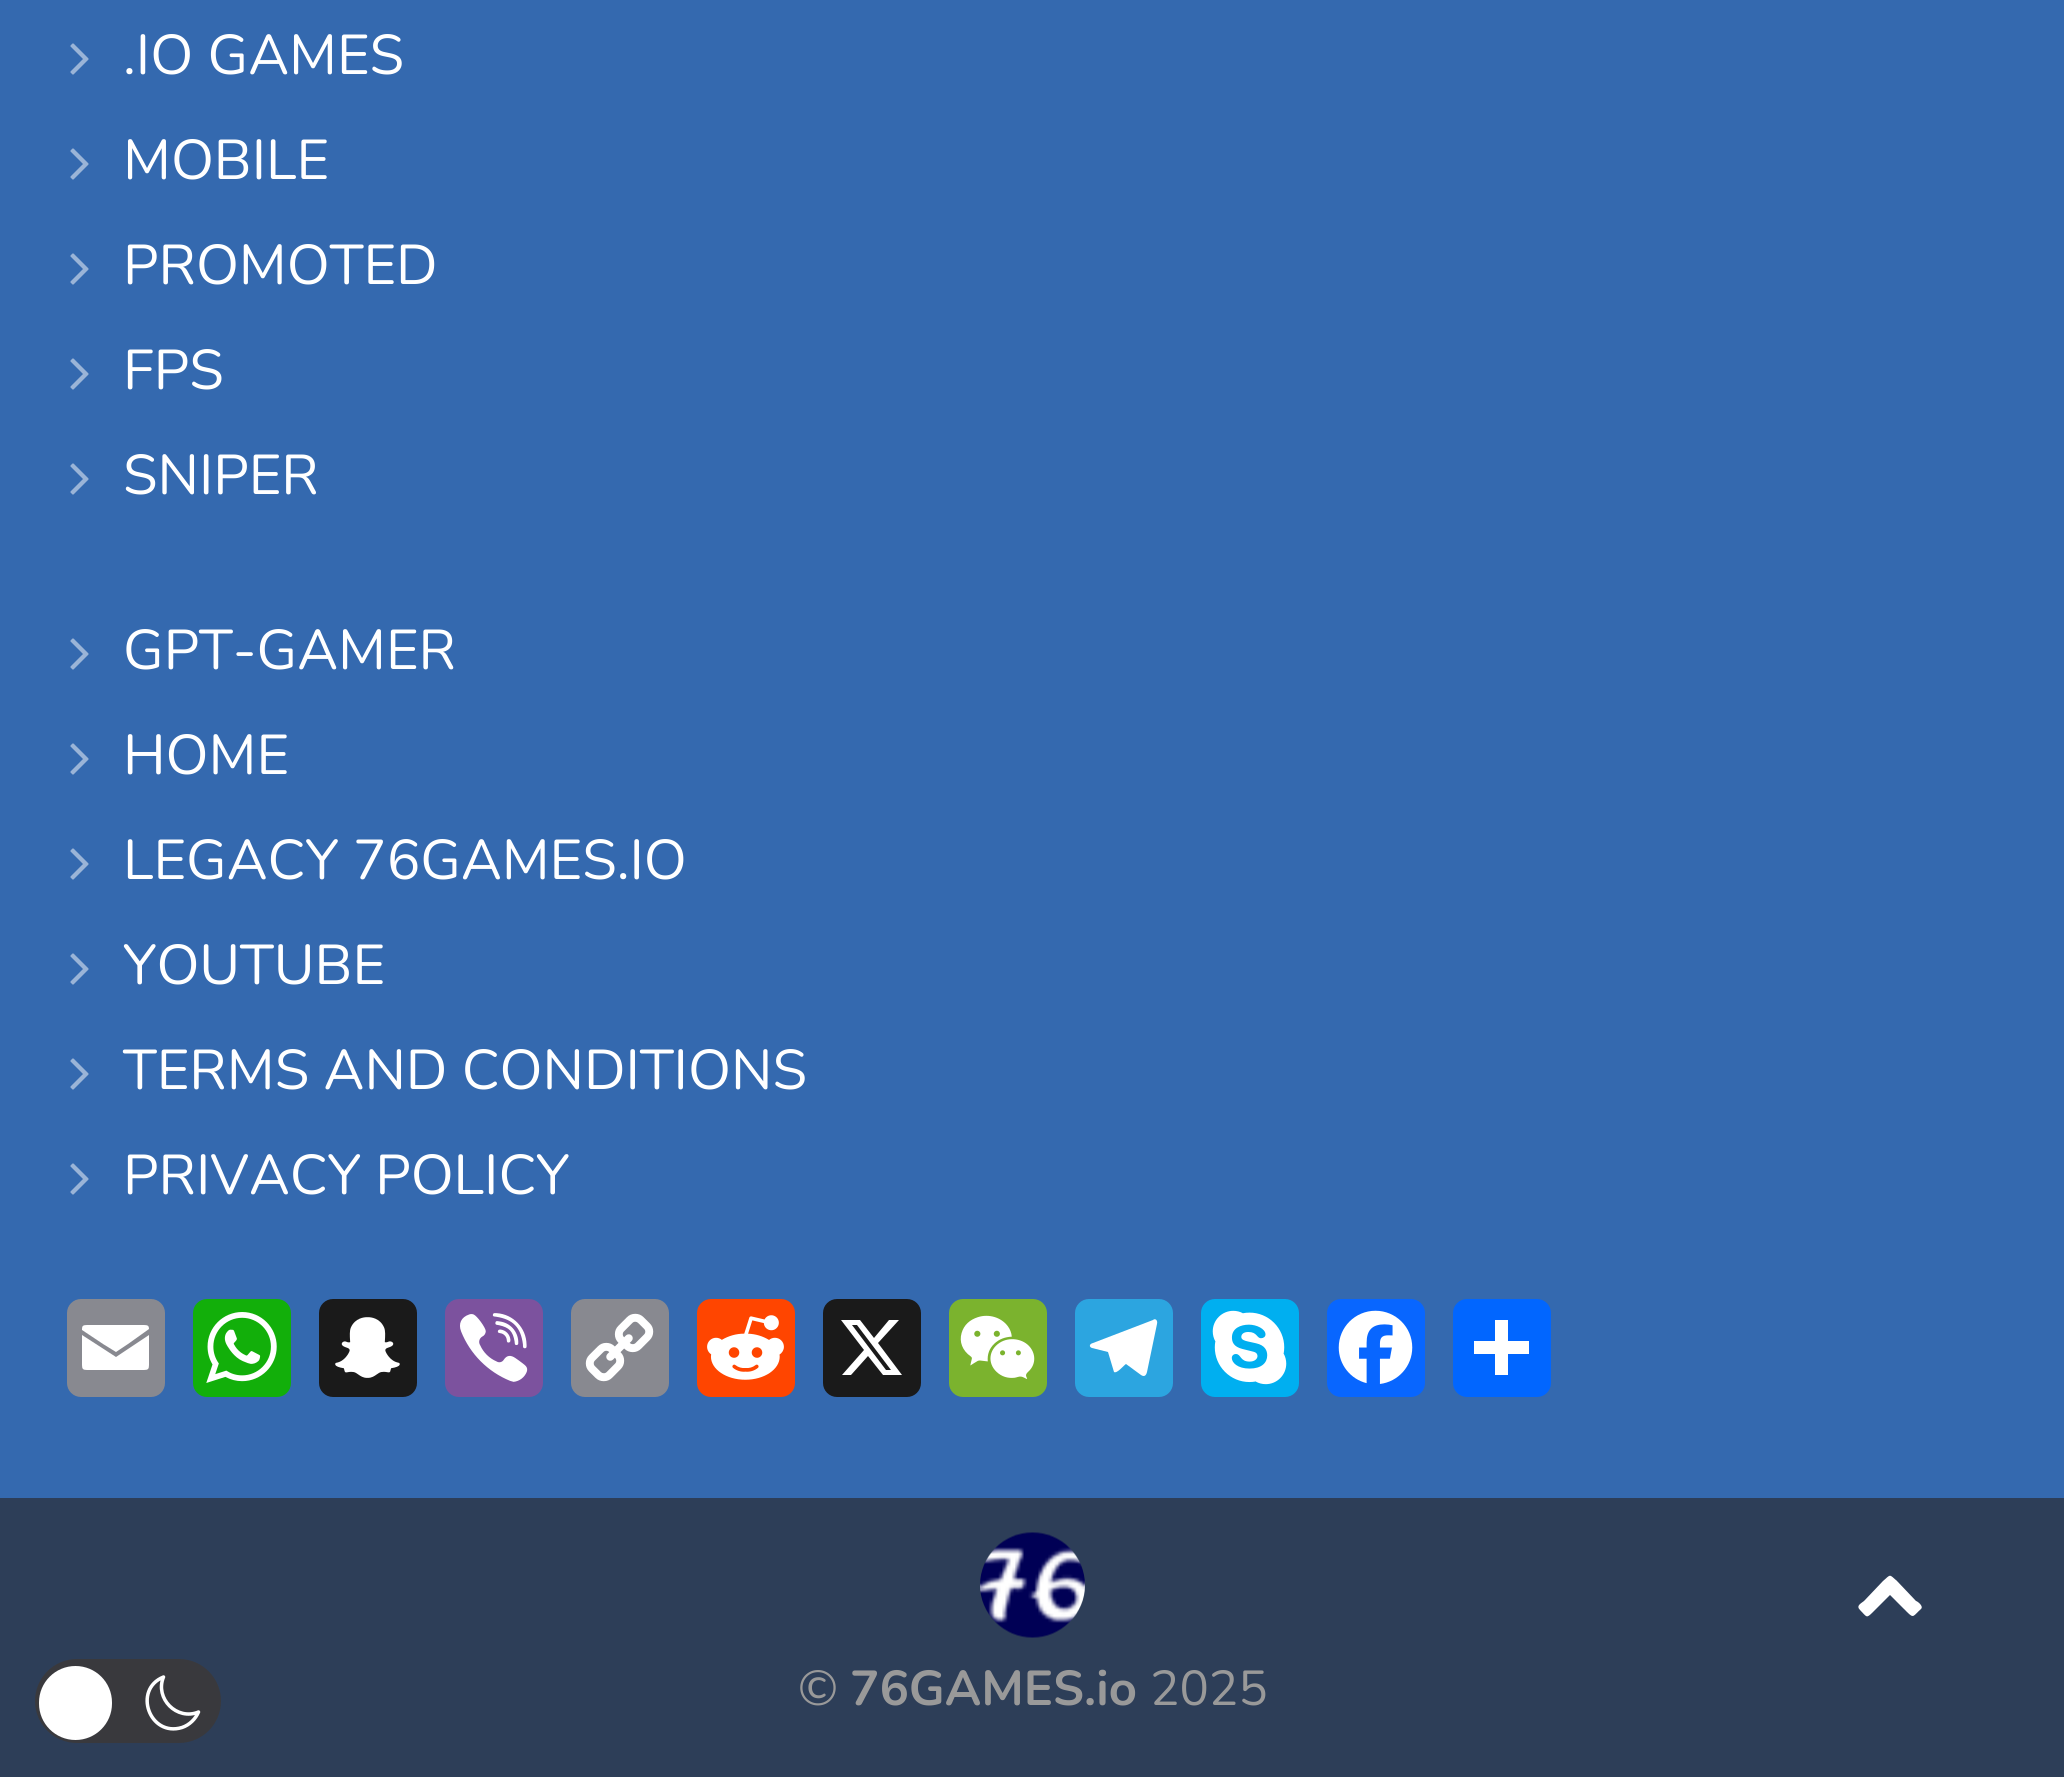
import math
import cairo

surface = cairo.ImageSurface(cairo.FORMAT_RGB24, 2064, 1777)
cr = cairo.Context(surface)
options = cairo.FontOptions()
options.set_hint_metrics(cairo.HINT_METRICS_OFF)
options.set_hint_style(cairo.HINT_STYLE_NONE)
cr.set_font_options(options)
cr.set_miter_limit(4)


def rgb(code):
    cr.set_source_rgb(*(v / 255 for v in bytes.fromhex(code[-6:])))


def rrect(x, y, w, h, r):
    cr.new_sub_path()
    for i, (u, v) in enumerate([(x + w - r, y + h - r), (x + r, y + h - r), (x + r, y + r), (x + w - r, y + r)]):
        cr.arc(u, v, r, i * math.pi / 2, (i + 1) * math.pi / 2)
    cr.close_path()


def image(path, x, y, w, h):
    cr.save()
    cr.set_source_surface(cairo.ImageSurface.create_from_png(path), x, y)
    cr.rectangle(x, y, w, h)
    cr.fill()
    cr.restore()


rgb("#3469af")
cr.paint()
image("img/1.png", 70, 43, 19, 32)
image("img/1.png", 70, 148, 19, 32)
image("img/1.png", 70, 253, 19, 32)
image("img/1.png", 70, 358, 19, 32)
image("img/1.png", 70, 463, 19, 32)
image("img/1.png", 70, 638, 19, 32)
image("img/1.png", 70, 743, 19, 32)
image("img/1.png", 70, 848, 19, 32)
image("img/1.png", 70, 953, 19, 32)
image("img/1.png", 70, 1058, 19, 32)
image("img/1.png", 70, 1163, 19, 32)
rgb("#888990")
rrect(67, 1299, 98, 98, 14)
cr.fill()
rgb("#ffffff")
cr.new_path()
cr.move_to(149, 1365)
cr.line_to(149, 1335)
cr.line_to(116, 1357)
cr.line_to(82, 1335)
cr.line_to(82, 1365)
cr.curve_to(82, 1369, 83, 1370, 87, 1370)
cr.line_to(144, 1370)
cr.curve_to(148, 1370, 149, 1369, 149, 1365)
cr.move_to(149, 1329)
cr.curve_to(149, 1326, 148, 1325, 144, 1325)
cr.line_to(87, 1325)
cr.curve_to(83, 1325, 82, 1326, 82, 1329)
cr.line_to(82, 1330)
cr.line_to(103, 1344)
cr.line_to(116, 1352)
cr.line_to(128, 1344)
cr.close_path()
cr.fill()
rgb("#12af0a")
rrect(193, 1299, 98, 98, 14)
cr.fill()
image("img/2.png", 206, 1312, 71, 71)
rgb("#1a1a1a")
rrect(319, 1299, 98, 98, 14)
cr.fill()
image("img/3.png", 335, 1317, 65, 61)
rgb("#7c529e")
rrect(445, 1299, 98, 98, 14)
cr.fill()
image("img/4.png", 460, 1313, 68, 69)
rgb("#888990")
rrect(571, 1299, 98, 98, 14)
cr.fill()
image("img/5.png", 585, 1313, 69, 69)
rgb("#ff4500")
rrect(697, 1299, 98, 98, 14)
cr.fill()
image("img/6.png", 707, 1315, 77, 65)
rgb("#1a1a1a")
rrect(823, 1299, 98, 98, 14)
cr.fill()
rgb("#ffffff")
cr.new_path()
cr.move_to(889, 1320)
cr.line_to(899, 1320)
cr.line_to(878, 1343)
cr.line_to(902, 1375)
cr.line_to(883, 1375)
cr.line_to(868, 1356)
cr.line_to(851, 1375)
cr.line_to(842, 1375)
cr.line_to(864, 1350)
cr.line_to(841, 1320)
cr.line_to(860, 1320)
cr.line_to(874, 1338)
cr.close_path()
cr.move_to(886, 1370)
cr.line_to(891, 1370)
cr.line_to(857, 1325)
cr.line_to(852, 1325)
cr.close_path()
cr.fill()
rgb("#7bb32e")
rrect(949, 1299, 98, 98, 14)
cr.fill()
image("img/7.png", 960, 1315, 75, 64)
rgb("#2ca5e0")
rrect(1075, 1299, 98, 98, 14)
cr.fill()
rgb("#ffffff")
cr.new_path()
cr.move_to(1153, 1320)
cr.line_to(1093, 1343)
cr.curve_to(1089, 1344, 1089, 1347, 1092, 1348)
cr.line_to(1108, 1352)
cr.line_to(1114, 1372)
cr.curve_to(1117, 1374, 1124, 1365, 1126, 1364)
cr.line_to(1141, 1375)
cr.curve_to(1144, 1377, 1146, 1376, 1147, 1372)
cr.line_to(1157, 1324)
cr.curve_to(1158, 1320, 1155, 1318, 1153, 1320)
cr.close_path()
cr.fill()
rgb("#00aff0")
rrect(1201, 1299, 98, 98, 14)
cr.fill()
image("img/8.png", 1212, 1310, 75, 75)
rgb("#0866ff")
rrect(1327, 1299, 98, 98, 14)
cr.fill()
image("img/9.png", 1338, 1310, 75, 74)
rgb("#0166ff")
rrect(1453, 1299, 98, 98, 14)
cr.fill()
for x, y, w, h, color in [
    (1495, 1320, 13, 55, "#ffffff"),
    (1474, 1341, 55, 13, "#ffffff"),
    (0, 1498, 2064, 279, "#2d3e58"),
]:
    rgb(color)
    cr.rectangle(x, y, w, h)
    cr.fill()
image("img/10.png", 980, 1532, 105, 106)
rgb("#ffffff")
cr.new_path()
cr.move_to(1921, 1609)
cr.curve_to(1913, 1616, 1914, 1619, 1907, 1612)
cr.line_to(1890, 1595)
cr.line_to(1873, 1612)
cr.curve_to(1866, 1619, 1867, 1617, 1860, 1610)
cr.curve_to(1856, 1606, 1860, 1604, 1864, 1601)
cr.line_to(1883, 1581)
cr.curve_to(1891, 1574, 1889, 1574, 1897, 1581)
cr.line_to(1916, 1601)
cr.curve_to(1917, 1601, 1924, 1606, 1921, 1609)
cr.close_path()
cr.fill()
rgb("#39393d")
rrect(35, 1659, 186, 84, 42)
cr.fill()
rgb("#ffffff")
rrect(39, 1666, 73, 74, 36.5)
cr.fill()
cr.new_path()
cr.move_to(198.5, 1712)
cr.curve_to(177, 1721, 154.5, 1698.5, 163.5, 1677)
cr.curve_to(132.5, 1689.5, 149.5, 1737.5, 182, 1727.5)
cr.curve_to(189.5, 1725, 195.5, 1719, 198.5, 1712)
cr.close_path()
cr.set_line_width(3.5)
cr.set_line_cap(cairo.LINE_CAP_ROUND)
cr.set_line_join(cairo.LINE_JOIN_ROUND)
cr.stroke()
cr.select_font_face("Nunito")
cr.set_font_size(56)
for x, y, s in [
    (123, 74, ".IO GAMES"),
    (123, 179, "MOBILE"),
    (123, 284, "PROMOTED"),
    (123, 389, "FPS"),
    (123, 494, "SNIPER"),
    (123, 669, "GPT-GAMER"),
    (123, 774, "HOME"),
    (123, 879, "LEGACY 76GAMES.IO"),
    (123, 984, "YOUTUBE"),
    (123, 1089, "TERMS AND CONDITIONS"),
    (123, 1194, "PRIVACY POLICY"),
]:
    cr.move_to(x, y)
    cr.show_text(s)
cr.set_font_size(49)
rgb("#999999")
cr.move_to(798, 1705)
cr.show_text("©")
cr.select_font_face("Nunito", cairo.FONT_SLANT_NORMAL, cairo.FONT_WEIGHT_BOLD)
cr.move_to(850, 1705)
cr.show_text("76GAMES.io")
cr.select_font_face("Nunito")
cr.move_to(1150, 1705)
cr.show_text("2025")
surface.write_to_png("page.png")
